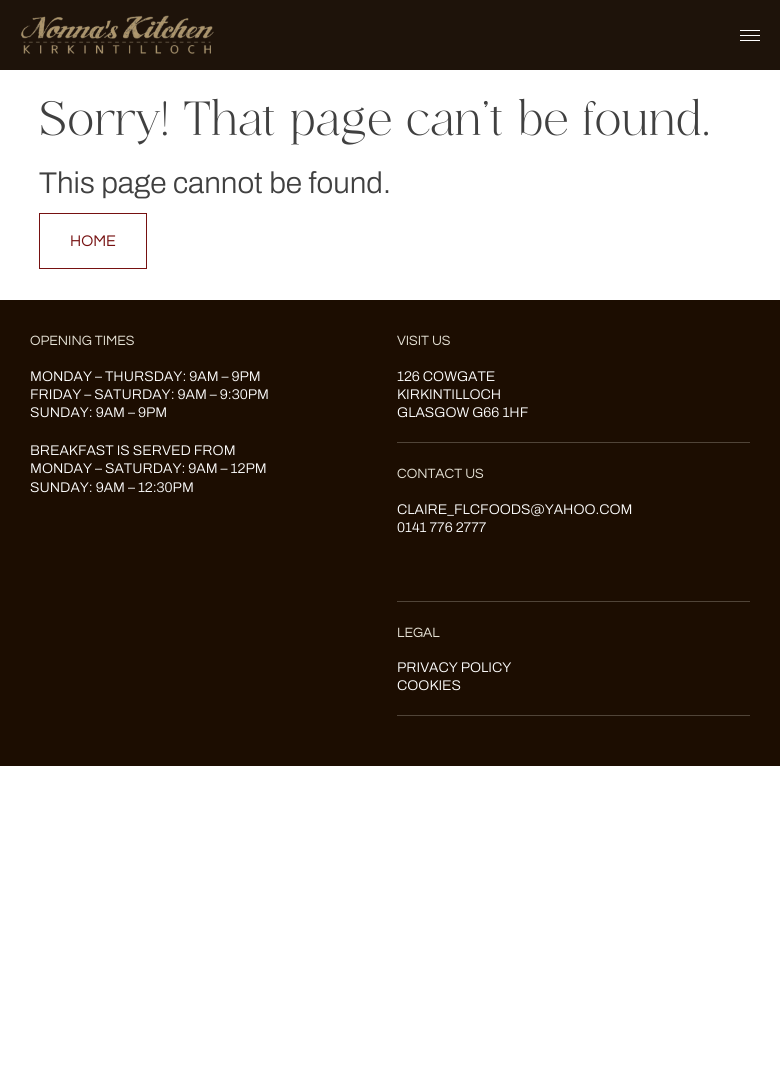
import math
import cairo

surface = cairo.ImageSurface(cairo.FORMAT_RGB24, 780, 1069)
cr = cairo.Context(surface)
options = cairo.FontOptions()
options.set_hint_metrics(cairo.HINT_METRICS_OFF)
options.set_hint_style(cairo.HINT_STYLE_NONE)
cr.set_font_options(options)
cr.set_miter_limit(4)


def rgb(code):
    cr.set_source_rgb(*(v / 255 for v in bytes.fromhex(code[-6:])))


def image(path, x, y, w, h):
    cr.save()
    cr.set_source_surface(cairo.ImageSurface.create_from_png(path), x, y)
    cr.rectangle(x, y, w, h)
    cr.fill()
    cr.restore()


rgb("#ffffff")
cr.paint()
rgb("#1e130a")
cr.rectangle(0, 0, 780, 70)
cr.fill()
image("img/1.png", 20, 15, 194, 39)
for x, y, w, h, color in [
    (740, 30, 20, 1, "#ffffff"),
    (740, 35, 20, 1, "#ffffff"),
    (740, 40, 20, 1, "#ffffff"),
]:
    rgb(color)
    cr.rectangle(x, y, w, h)
    cr.fill()
cr.rectangle(39.5, 213.5, 107, 55)
rgb("#761111")
cr.set_line_width(1)
cr.stroke()
for x, y, w, h, color in [
    (0, 300, 780, 466, "#1c0d01"),
    (397, 442, 353, 1, "#504438"),
    (397, 601, 353, 1, "#504438"),
    (397, 715, 353, 1, "#504438"),
]:
    rgb(color)
    cr.rectangle(x, y, w, h)
    cr.fill()
cr.select_font_face("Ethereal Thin")
cr.set_font_size(48)
rgb("#404040")
cr.move_to(39, 135)
cr.show_text("Sorry! That page can’t be found.")
cr.select_font_face("Archivo Light")
cr.set_font_size(30)
cr.move_to(39, 193)
cr.show_text("This page cannot be found.")
cr.select_font_face("Questrial")
cr.set_font_size(16)
rgb("#761111")
cr.move_to(70, 246)
cr.show_text("HOME")
cr.set_font_size(14)
rgb("#e5e1d5")
cr.move_to(30, 345)
cr.show_text("OPENING TIMES")
cr.select_font_face("Archivo Light")
rgb("#ffffff")
for x, y, s in [
    (30, 381, "MONDAY – THURSDAY: 9AM – 9PM"),
    (30, 399, "FRIDAY – SATURDAY: 9AM – 9:30PM"),
    (30, 417, "SUNDAY: 9AM – 9PM"),
    (30, 455, "BREAKFAST IS SERVED FROM"),
    (30, 473, "MONDAY – SATURDAY: 9AM – 12PM"),
    (30, 492, "SUNDAY: 9AM – 12:30PM"),
]:
    cr.move_to(x, y)
    cr.show_text(s)
cr.select_font_face("Questrial")
rgb("#e5e1d5")
cr.move_to(397, 345)
cr.show_text("VISIT US")
cr.select_font_face("Archivo Light")
rgb("#ffffff")
for x, y, s in [
    (397, 381, "126 COWGATE"),
    (397, 399, "KIRKINTILLOCH"),
    (397, 417, "GLASGOW G66 1HF"),
]:
    cr.move_to(x, y)
    cr.show_text(s)
cr.select_font_face("Questrial")
rgb("#e5e1d5")
cr.move_to(397, 478)
cr.show_text("CONTACT US")
cr.select_font_face("Archivo Light")
rgb("#ffffff")
cr.move_to(397, 514)
cr.show_text("CLAIRE_FLCFOODS@YAHOO.COM")
cr.move_to(397, 532)
cr.show_text("0141 776 2777")
cr.select_font_face("Questrial")
rgb("#e5e1d5")
cr.move_to(397, 637)
cr.show_text("LEGAL")
cr.select_font_face("Archivo Light")
rgb("#ffffff")
cr.move_to(397, 672)
cr.show_text("PRIVACY POLICY")
cr.move_to(397, 690)
cr.show_text("COOKIES")
surface.write_to_png("page.png")
